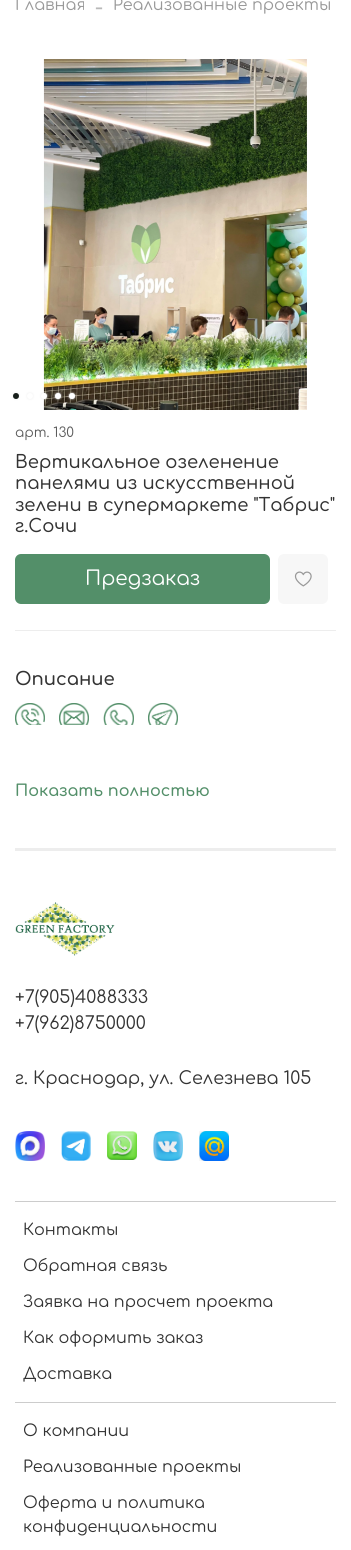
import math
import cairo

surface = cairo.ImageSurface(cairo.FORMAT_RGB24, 351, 1550)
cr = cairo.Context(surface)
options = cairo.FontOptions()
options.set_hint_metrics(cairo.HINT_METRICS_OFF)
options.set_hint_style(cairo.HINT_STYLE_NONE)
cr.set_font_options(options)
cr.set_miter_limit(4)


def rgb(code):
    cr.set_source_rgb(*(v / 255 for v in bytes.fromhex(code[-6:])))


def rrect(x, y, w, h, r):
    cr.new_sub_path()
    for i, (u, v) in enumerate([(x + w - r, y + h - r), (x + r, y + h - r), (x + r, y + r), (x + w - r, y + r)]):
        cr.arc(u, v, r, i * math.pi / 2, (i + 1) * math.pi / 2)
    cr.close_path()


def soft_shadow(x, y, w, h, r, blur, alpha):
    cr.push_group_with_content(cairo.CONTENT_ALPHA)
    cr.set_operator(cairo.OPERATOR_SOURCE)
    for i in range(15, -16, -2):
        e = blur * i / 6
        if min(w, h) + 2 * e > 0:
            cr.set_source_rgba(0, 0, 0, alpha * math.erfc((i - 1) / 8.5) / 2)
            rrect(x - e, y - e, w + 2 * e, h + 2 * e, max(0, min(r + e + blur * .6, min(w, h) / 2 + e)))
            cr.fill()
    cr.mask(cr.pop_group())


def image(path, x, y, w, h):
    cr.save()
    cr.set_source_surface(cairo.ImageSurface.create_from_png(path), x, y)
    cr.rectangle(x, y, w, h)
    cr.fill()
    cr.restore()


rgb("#ffffff")
cr.paint()
image("img/1.png", 43, 59, 264, 351)
rgb("#ededed")
soft_shadow(13, 393, 6, 6, 3, 1, 1)
rgb("#171f1a")
cr.arc(16, 396, 3, 0, 2 * math.pi)
cr.fill()
rgb("#ededed")
soft_shadow(27, 393, 6, 6, 3, 1, 1)
rgb("#ffffff")
cr.arc(30, 396, 3, 0, 2 * math.pi)
cr.fill()
rgb("#ededed")
soft_shadow(41, 393, 6, 6, 3, 1, 1)
rgb("#ffffff")
cr.arc(44, 396, 3, 0, 2 * math.pi)
cr.fill()
rgb("#ededed")
soft_shadow(55, 393, 6, 6, 3, 1, 1)
rgb("#ffffff")
cr.arc(58, 396, 3, 0, 2 * math.pi)
cr.fill()
rgb("#ededed")
soft_shadow(69, 393, 6, 6, 3, 1, 1)
rgb("#ffffff")
cr.arc(72, 396, 3, 0, 2 * math.pi)
cr.fill()
rgb("#538f69")
rrect(15, 554, 255, 50, 6)
cr.fill()
rgb("#f7f7f7")
rrect(278, 554, 50, 50, 6)
cr.fill()
image("img/2.png", 294, 571, 18, 16)
rgb("#ededed")
cr.rectangle(15, 630, 321, 1)
cr.fill()
image("img/3.png", 15, 703, 30, 22)
image("img/4.png", 59, 703, 30, 22)
image("img/5.png", 103, 703, 31, 22)
image("img/6.png", 148, 703, 30, 22)
cr.rectangle(15, 848, 321, 3)
cr.fill()
image("img/7.png", 15, 902, 100, 54)
image("img/8.png", 15, 1131, 30, 30)
image("img/9.png", 61, 1131, 30, 30)
image("img/10.png", 107, 1131, 30, 29)
image("img/11.png", 153, 1131, 30, 30)
image("img/12.png", 199, 1131, 30, 30)
rgb("#cccccc")
cr.rectangle(15, 1201, 321, 1)
cr.fill()
cr.rectangle(15, 1402, 321, 1)
cr.fill()
cr.select_font_face("Comfortaa")
cr.set_font_size(16)
rgb("#999999")
cr.move_to(15, 10)
cr.show_text("Главная")
cr.select_font_face("Liberation Serif")
cr.set_font_size(24)
rgb("#b8b8b8")
cr.move_to(95, 14)
cr.show_text("-")
cr.select_font_face("Comfortaa")
cr.set_font_size(16)
rgb("#999999")
cr.move_to(113, 10)
cr.show_text("Реализованные проекты")
cr.set_font_size(13.5)
rgb("#5c5c5c")
cr.move_to(15, 437)
cr.show_text("арт. 130")
cr.select_font_face("Comfortaa Medium")
cr.set_font_size(18)
rgb("#333333")
for x, y, s in [
    (15, 468, "Вертикальное озеленение"),
    (15, 489, "панелями из искусственной"),
    (15, 511, "зелени в супермаркете \"Табрис\""),
    (15, 532, "г.Сочи"),
]:
    cr.move_to(x, y)
    cr.show_text(s)
cr.select_font_face("Comfortaa")
cr.set_font_size(20)
rgb("#ffffff")
cr.move_to(85, 585)
cr.show_text("Предзаказ")
cr.select_font_face("Comfortaa SemiBold")
cr.set_font_size(18)
rgb("#333333")
cr.move_to(15, 685)
cr.show_text("Описание")
cr.set_font_size(16)
rgb("#538f69")
cr.move_to(15, 796)
cr.show_text("Показать полностью")
cr.select_font_face("Comfortaa")
cr.set_font_size(17.6)
rgb("#333333")
for x, y, s in [
    (15, 1003, "+7(905)4088333"),
    (15, 1029, "+7(962)8750000"),
    (15, 1084, "г. Краснодар, ул. Селезнева 105"),
]:
    cr.move_to(x, y)
    cr.show_text(s)
cr.set_font_size(16)
for x, y, s in [
    (23, 1235, "Контакты"),
    (23, 1271, "Обратная связь"),
    (23, 1307, "Заявка на просчет проекта"),
    (23, 1343, "Как оформить заказ"),
    (23, 1379, "Доставка"),
    (23, 1436, "О компании"),
    (23, 1472, "Реализованные проекты"),
    (23, 1508, "Оферта и политика"),
    (23, 1532, "конфиденциальности"),
]:
    cr.move_to(x, y)
    cr.show_text(s)
surface.write_to_png("page.png")
